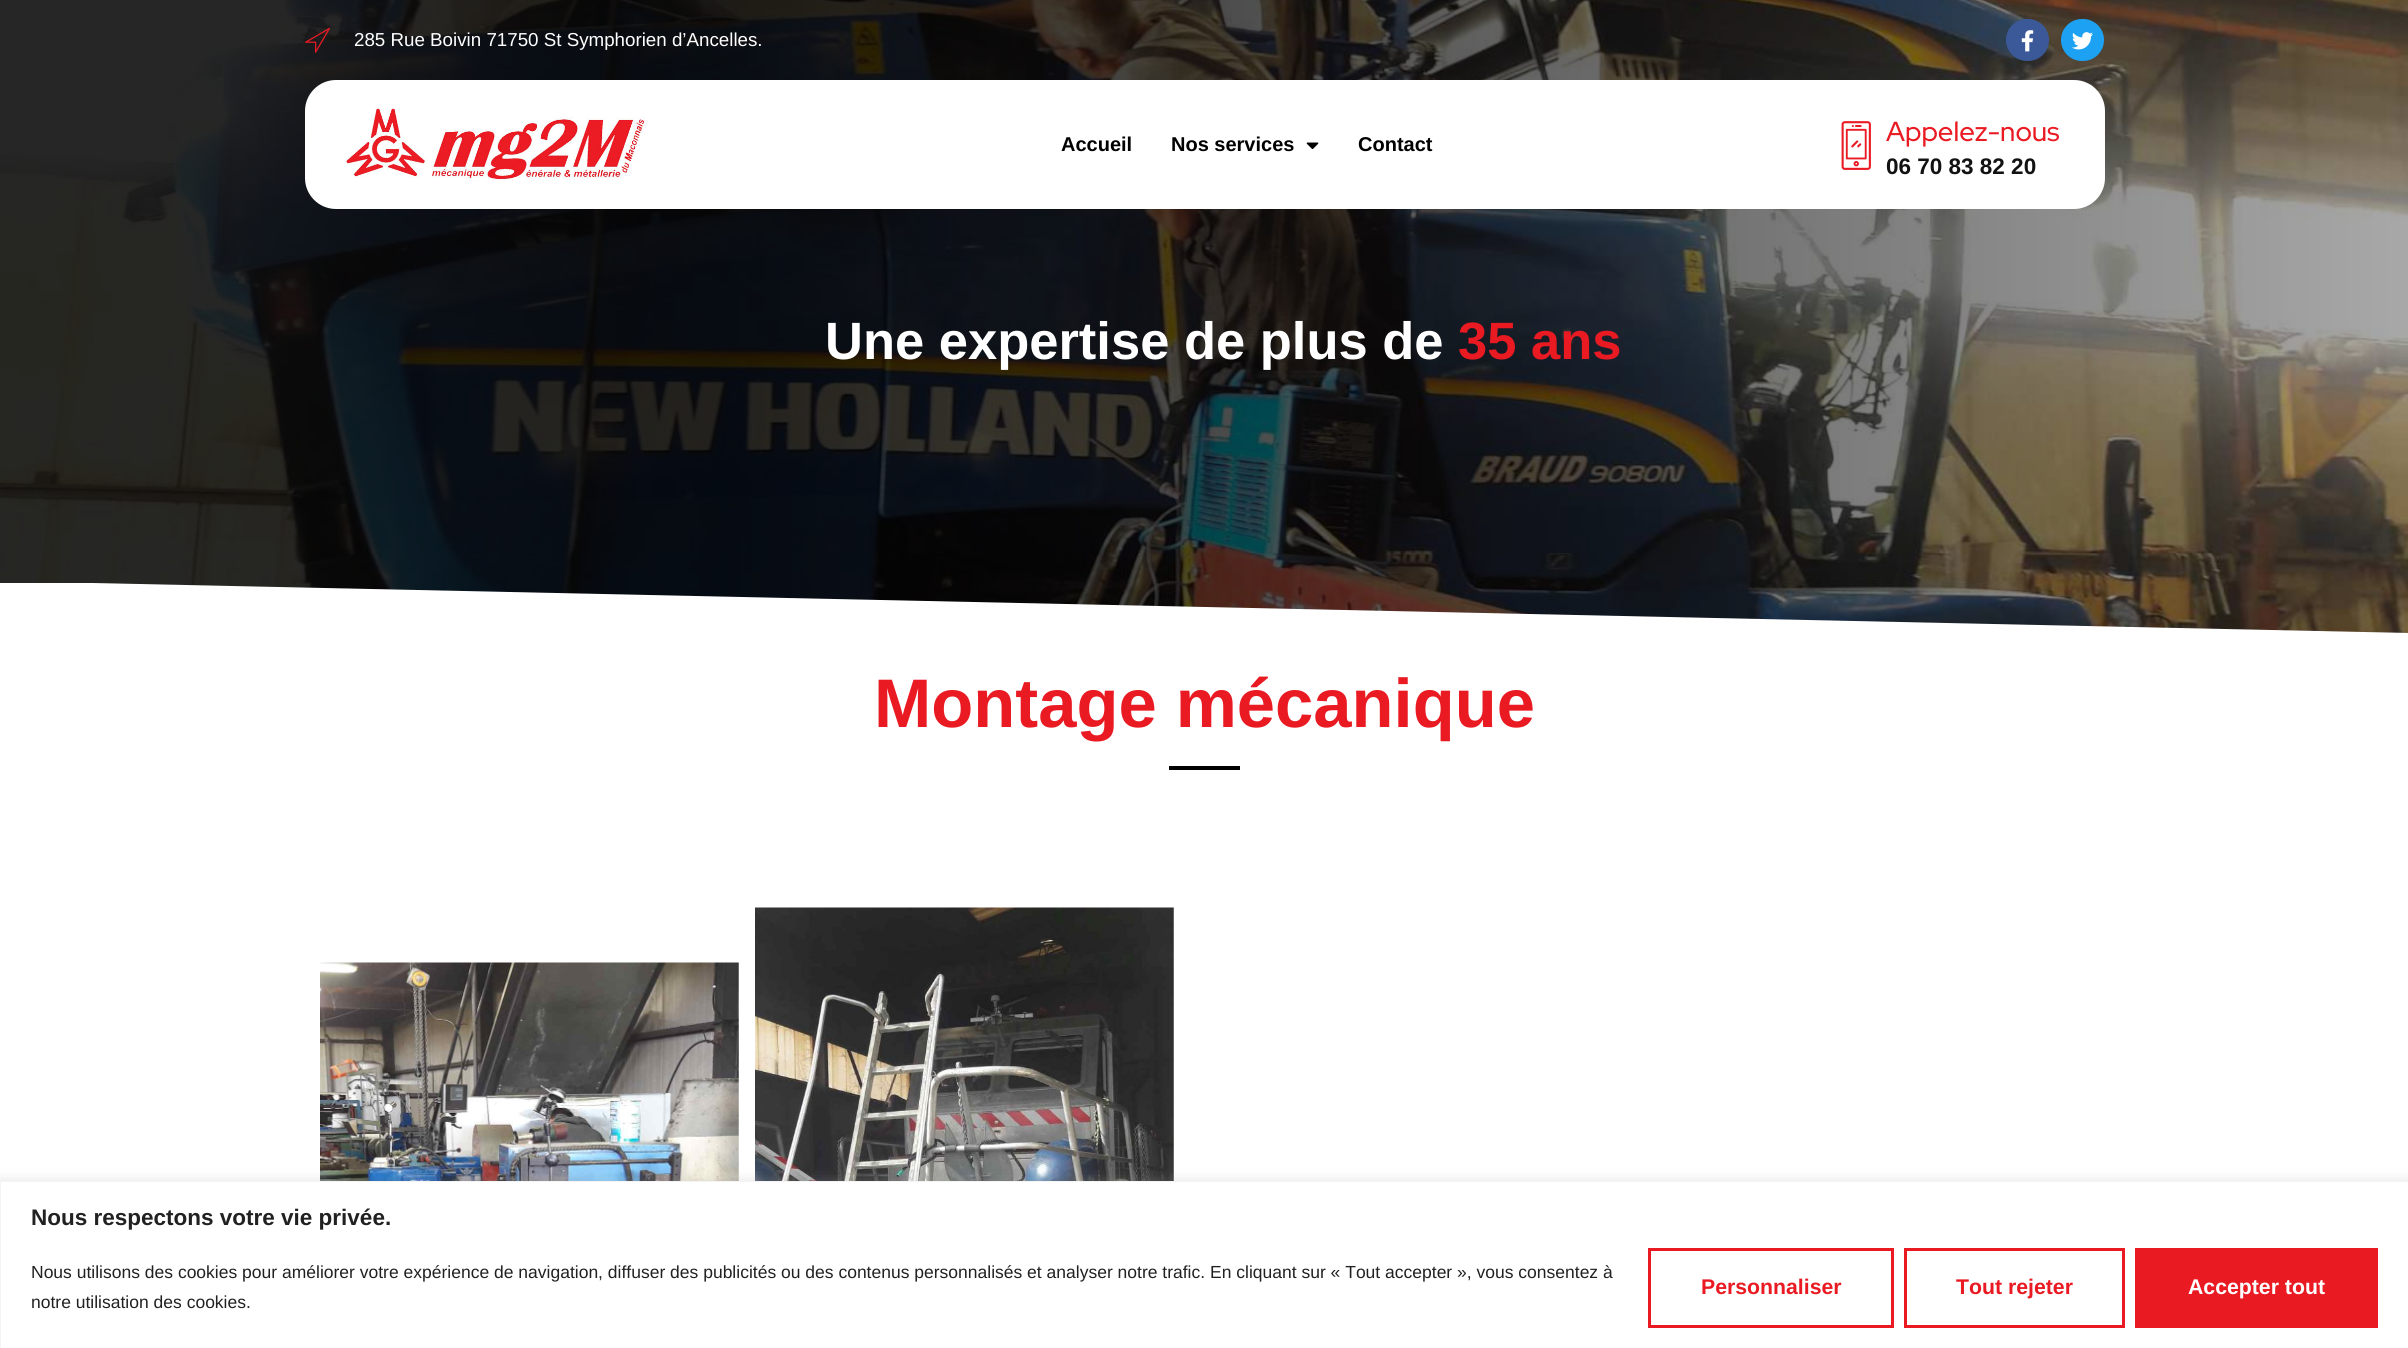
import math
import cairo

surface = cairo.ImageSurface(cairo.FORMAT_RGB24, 2408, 1348)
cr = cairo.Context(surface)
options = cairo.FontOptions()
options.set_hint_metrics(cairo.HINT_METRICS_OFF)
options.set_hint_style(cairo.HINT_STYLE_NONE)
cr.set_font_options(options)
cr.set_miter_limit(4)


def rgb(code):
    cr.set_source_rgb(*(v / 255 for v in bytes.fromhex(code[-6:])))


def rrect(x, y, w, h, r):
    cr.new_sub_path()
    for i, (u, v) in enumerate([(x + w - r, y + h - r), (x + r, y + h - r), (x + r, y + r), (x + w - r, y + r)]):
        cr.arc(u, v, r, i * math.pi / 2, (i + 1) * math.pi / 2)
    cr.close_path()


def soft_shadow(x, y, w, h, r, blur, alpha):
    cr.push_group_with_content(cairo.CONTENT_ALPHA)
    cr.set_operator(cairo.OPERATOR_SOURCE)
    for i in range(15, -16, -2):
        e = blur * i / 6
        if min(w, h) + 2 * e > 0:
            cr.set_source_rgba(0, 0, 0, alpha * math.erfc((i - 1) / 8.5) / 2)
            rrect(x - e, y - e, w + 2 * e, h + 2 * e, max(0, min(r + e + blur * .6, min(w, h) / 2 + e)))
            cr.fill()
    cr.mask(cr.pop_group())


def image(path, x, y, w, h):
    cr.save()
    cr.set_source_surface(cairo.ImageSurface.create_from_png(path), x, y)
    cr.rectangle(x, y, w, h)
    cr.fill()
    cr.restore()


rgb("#ffffff")
cr.paint()
image("img/7.png", 0, 0, 2408, 633)
gradient = cairo.LinearGradient(0, 298, 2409, 297)
gradient.add_color_stop_rgba(0.3, 0, 0, 0, 0.85)
gradient.add_color_stop_rgba(1, 0, 0, 0, 0.34)
cr.set_source(gradient)
cr.rectangle(0, 0, 2408, 633)
cr.fill()
image("img/1.png", 305, 27, 25, 26)
rgb("#3b5998")
rrect(2006, 19, 43, 42, 21)
cr.fill()
image("img/2.png", 2021, 30, 13, 22)
rgb("#1da1f2")
rrect(2061, 19, 43, 42, 21)
cr.fill()
image("img/3.png", 2072, 32, 21, 18)
rgb("#ffffff")
rrect(305, 80, 1800, 129, 31)
cr.fill()
image("img/4.png", 343, 105, 305, 77)
image("img/5.png", 1306, 142, 13, 8)
image("img/6.png", 1841, 121, 30, 49)
cr.save()
cr.rectangle(0, 583, 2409, 55)
cr.clip()
cr.new_path()
cr.move_to(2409, 633)
cr.line_to(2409, 636)
cr.line_to(-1, 636)
cr.line_to(-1, 581)
cr.close_path()
cr.fill()
cr.restore()
rgb("#000000")
cr.rectangle(1169, 766, 71, 4)
cr.fill()
image("img/8.png", 320, 962, 419, 219)
image("img/9.png", 755, 907, 419, 274)
rgb("#acabab")
soft_shadow(0, 1180, 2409, 168, 0, 6, 0.3)
rgb("#ffffff")
cr.rectangle(0.5, 1181.5, 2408, 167)
cr.fill_preserve()
rgb("#f4f4f4")
cr.set_line_width(1)
cr.stroke()
cr.rectangle(1649.5, 1249.5, 243, 77)
rgb("#ea1a23")
cr.set_line_width(3)
cr.stroke()
cr.rectangle(1905.5, 1249.5, 218, 77)
cr.stroke()
cr.rectangle(2135, 1248, 243, 80)
cr.fill()
cr.select_font_face("Liberation Sans")
cr.set_font_size(18.75)
rgb("#ffffff")
cr.move_to(354, 46)
cr.show_text("285 Rue Boivin 71750 St Symphorien d’Ancelles.")
cr.select_font_face("Liberation Sans", cairo.FONT_SLANT_NORMAL, cairo.FONT_WEIGHT_BOLD)
cr.set_font_size(20)
rgb("#000000")
for x, y, s in [
    (1061, 151, "Accueil"),
    (1171, 151, "Nos services"),
    (1358, 151, "Contact"),
]:
    cr.move_to(x, y)
    cr.show_text(s)
cr.select_font_face("Red Hat Display Medium")
cr.set_font_size(27.5)
rgb("#ea1a23")
cr.move_to(1886, 141)
cr.show_text("Appelez-nous")
cr.select_font_face("Liberation Sans", cairo.FONT_SLANT_NORMAL, cairo.FONT_WEIGHT_BOLD)
cr.set_font_size(22.5)
rgb("#121212")
cr.move_to(1886, 174)
cr.show_text("06 70 83 82 20")
cr.set_font_size(52.5)
rgb("#ffffff")
cr.move_to(825, 359)
cr.show_text("Une expertise de plus de")
rgb("#ea1a23")
cr.move_to(1458, 359)
cr.show_text("35 ans")
cr.set_font_size(68.75)
cr.move_to(874, 727)
cr.show_text("Montage mécanique")
cr.set_font_size(22.5)
rgb("#212121")
cr.move_to(31, 1225)
cr.show_text("Nous respectons votre vie privée.")
cr.select_font_face("Liberation Sans")
cr.set_font_size(17.5)
cr.move_to(31, 1278)
cr.show_text("Nous utilisons des cookies pour améliorer votre expérience de navigation, diffuser des publicités ou des contenus personnalisés et analyser notre trafic. En cliquant sur « Tout accepter », vous consentez à")
cr.move_to(31, 1308)
cr.show_text("notre utilisation des cookies.")
cr.select_font_face("Liberation Sans", cairo.FONT_SLANT_NORMAL, cairo.FONT_WEIGHT_BOLD)
cr.set_font_size(21.25)
rgb("#ea1a23")
cr.move_to(1701, 1294)
cr.show_text("Personnaliser")
cr.move_to(1956, 1294)
cr.show_text("Tout rejeter")
rgb("#ffffff")
cr.move_to(2188, 1294)
cr.show_text("Accepter tout")
surface.write_to_png("page.png")
